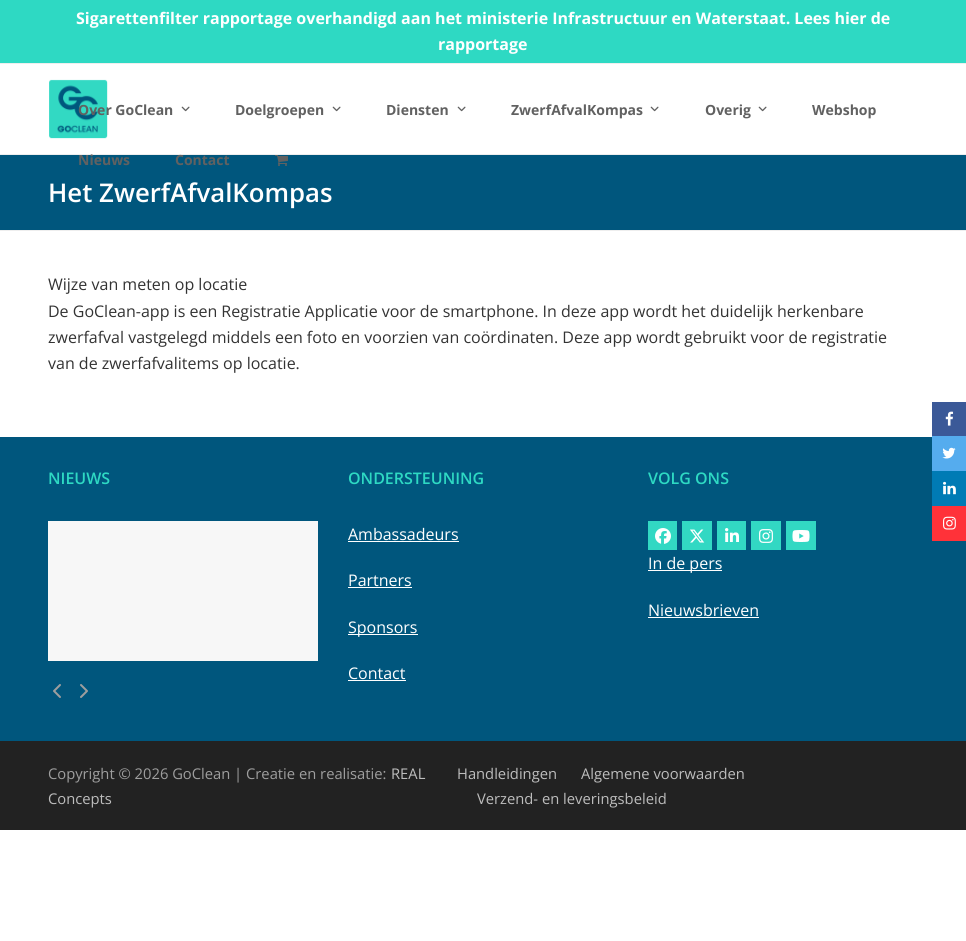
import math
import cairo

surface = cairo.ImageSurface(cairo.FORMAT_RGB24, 966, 941)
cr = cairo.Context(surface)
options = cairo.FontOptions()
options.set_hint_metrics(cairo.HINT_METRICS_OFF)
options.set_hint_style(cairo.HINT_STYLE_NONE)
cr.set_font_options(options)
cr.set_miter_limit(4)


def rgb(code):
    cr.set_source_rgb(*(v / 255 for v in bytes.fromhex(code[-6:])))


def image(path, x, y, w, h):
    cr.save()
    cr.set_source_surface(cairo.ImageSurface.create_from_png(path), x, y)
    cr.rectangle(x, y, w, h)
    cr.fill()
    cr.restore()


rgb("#ffffff")
cr.paint()
rgb("#2ed9c3")
cr.rectangle(0, 0, 966, 63)
cr.fill()
rgb("#eeeeee")
cr.rectangle(0, 63, 966, 1)
cr.fill()
image("img/1.png", 49, 79, 59, 60)
image("img/2.png", 181, 106, 9, 6)
image("img/2.png", 332, 106, 9, 6)
image("img/2.png", 457, 106, 9, 6)
image("img/2.png", 650, 106, 9, 6)
image("img/2.png", 758, 106, 9, 6)
rgb("#00567d")
cr.rectangle(0, 155, 966, 75)
cr.fill()
image("img/3.png", 275, 155, 13, 11)
for x, y, w, h, color in [
    (0, 154, 966, 1, "#eeeeee"),
    (0, 230, 966, 1, "#eeeeee"),
    (0, 437, 966, 304, "#00567d"),
    (48, 521, 270, 140, "#f7f7f7"),
]:
    rgb(color)
    cr.rectangle(x, y, w, h)
    cr.fill()
image("img/4.png", 53, 684, 8, 14)
image("img/5.png", 80, 684, 8, 14)
for x, y, w, h, color in [
    (348, 541, 111, 1, "#ffffff"),
    (348, 587, 64, 1, "#ffffff"),
    (348, 634, 70, 1, "#ffffff"),
    (348, 680, 58, 1, "#ffffff"),
    (648, 521, 29, 29, "#32d8c3"),
]:
    rgb(color)
    cr.rectangle(x, y, w, h)
    cr.fill()
image("img/6.png", 655, 528, 16, 16)
cr.rectangle(682, 521, 30, 29)
cr.fill()
image("img/7.png", 690, 529, 15, 14)
cr.rectangle(717, 521, 29, 29)
cr.fill()
image("img/8.png", 725, 528, 14, 14)
cr.rectangle(751, 521, 30, 29)
cr.fill()
image("img/9.png", 759, 529, 14, 14)
cr.rectangle(786, 521, 30, 29)
cr.fill()
image("img/10.png", 792, 530, 18, 12)
for x, y, w, h, color in [
    (648, 570, 74, 1, "#ffffff"),
    (648, 617, 111, 1, "#ffffff"),
    (0, 741, 966, 89, "#222222"),
    (932, 402, 34, 34, "#3b5998"),
]:
    rgb(color)
    cr.rectangle(x, y, w, h)
    cr.fill()
image("img/11.png", 945, 411, 9, 15)
rgb("#55acee")
cr.rectangle(932, 436, 34, 35)
cr.fill()
image("img/12.png", 942, 447, 14, 12)
rgb("#007bb5")
cr.rectangle(932, 471, 34, 35)
cr.fill()
image("img/13.png", 943, 481, 13, 14)
rgb("#ff3239")
cr.rectangle(932, 506, 34, 35)
cr.fill()
image("img/14.png", 943, 516, 13, 14)
cr.select_font_face("Open Sans", cairo.FONT_SLANT_NORMAL, cairo.FONT_WEIGHT_BOLD)
cr.set_font_size(16)
rgb("#ffffff")
cr.move_to(76, 24)
cr.show_text("Sigarettenfilter rapportage overhandigd aan het ministerie Infrastructuur en Waterstaat. Lees hier de")
cr.move_to(438, 50)
cr.show_text("rapportage")
cr.set_font_size(14)
rgb("#616161")
for x, y, s in [
    (78, 115, "Over GoClean"),
    (235, 115, "Doelgroepen"),
    (386, 115, "Diensten"),
    (511, 115, "ZwerfAfvalKompas"),
    (705, 115, "Overig"),
    (812, 115, "Webshop"),
    (78, 165, "Nieuws"),
    (175, 165, "Contact"),
]:
    cr.move_to(x, y)
    cr.show_text(s)
cr.select_font_face("Open Sans SemiBold")
cr.set_font_size(25.75)
rgb("#ffffff")
cr.move_to(48, 202)
cr.show_text("Het ZwerfAfvalKompas")
cr.select_font_face("Open Sans")
cr.set_font_size(16)
rgb("#333333")
for x, y, s in [
    (48, 290, "Wijze van meten op locatie"),
    (48, 317, "De GoClean-app is een Registratie Applicatie voor de smartphone. In deze app wordt het duidelijk herkenbare"),
    (48, 343, "zwerfafval vastgelegd middels een foto en voorzien van coördinaten. Deze app wordt gebruikt voor de registratie"),
    (48, 369, "van de zwerfafvalitems op locatie."),
]:
    cr.move_to(x, y)
    cr.show_text(s)
cr.select_font_face("Open Sans SemiBold")
rgb("#2ed9c3")
cr.move_to(48, 484)
cr.show_text("NIEUWS")
cr.move_to(348, 484)
cr.show_text("ONDERSTEUNING")
cr.select_font_face("Open Sans")
rgb("#ffffff")
for x, y, s in [
    (348, 540, "Ambassadeurs"),
    (348, 586, "Partners"),
    (348, 633, "Sponsors"),
    (348, 679, "Contact"),
]:
    cr.move_to(x, y)
    cr.show_text(s)
cr.select_font_face("Open Sans SemiBold")
rgb("#2ed9c3")
cr.move_to(648, 484)
cr.show_text("VOLG ONS")
cr.select_font_face("Open Sans")
rgb("#ffffff")
cr.move_to(648, 569)
cr.show_text("In de pers")
cr.move_to(648, 616)
cr.show_text("Nieuwsbrieven")
cr.set_font_size(14.75)
rgb("#9e9e9e")
cr.move_to(48, 779)
cr.show_text("Copyright © 2026 GoClean | Creatie en realisatie:")
rgb("#bdbdbd")
for x, y, s in [
    (391, 779, "REAL"),
    (48, 804, "Concepts"),
    (457, 779, "Handleidingen"),
    (581, 779, "Algemene voorwaarden"),
    (477, 804, "Verzend- en leveringsbeleid"),
]:
    cr.move_to(x, y)
    cr.show_text(s)
surface.write_to_png("page.png")
